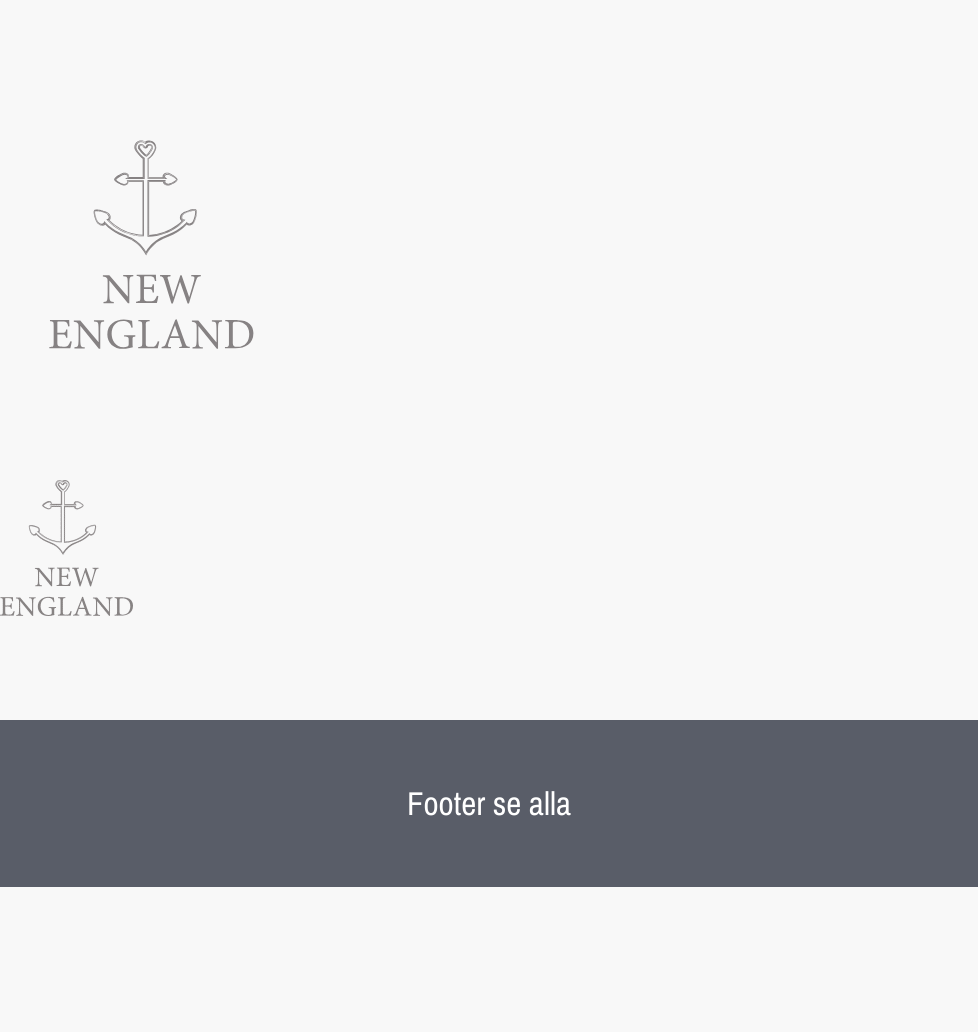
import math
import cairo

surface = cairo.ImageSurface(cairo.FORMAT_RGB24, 978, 1032)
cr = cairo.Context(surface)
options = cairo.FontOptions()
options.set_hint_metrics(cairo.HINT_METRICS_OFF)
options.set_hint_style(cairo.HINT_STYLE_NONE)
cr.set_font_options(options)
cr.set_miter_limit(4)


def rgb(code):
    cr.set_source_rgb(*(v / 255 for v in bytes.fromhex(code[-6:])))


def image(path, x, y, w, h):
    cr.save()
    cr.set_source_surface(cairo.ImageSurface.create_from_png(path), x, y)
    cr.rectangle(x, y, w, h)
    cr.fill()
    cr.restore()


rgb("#f8f8f8")
cr.paint()
image("img/1.png", 49, 140, 205, 209)
image("img/2.png", 0, 480, 133, 136)
rgb("#595d68")
cr.rectangle(0, 720, 978, 167)
cr.fill()
cr.select_font_face("Archivo Narrow")
cr.set_font_size(33)
rgb("#ffffff")
cr.move_to(407, 815)
cr.show_text("Footer se alla")
surface.write_to_png("page.png")
